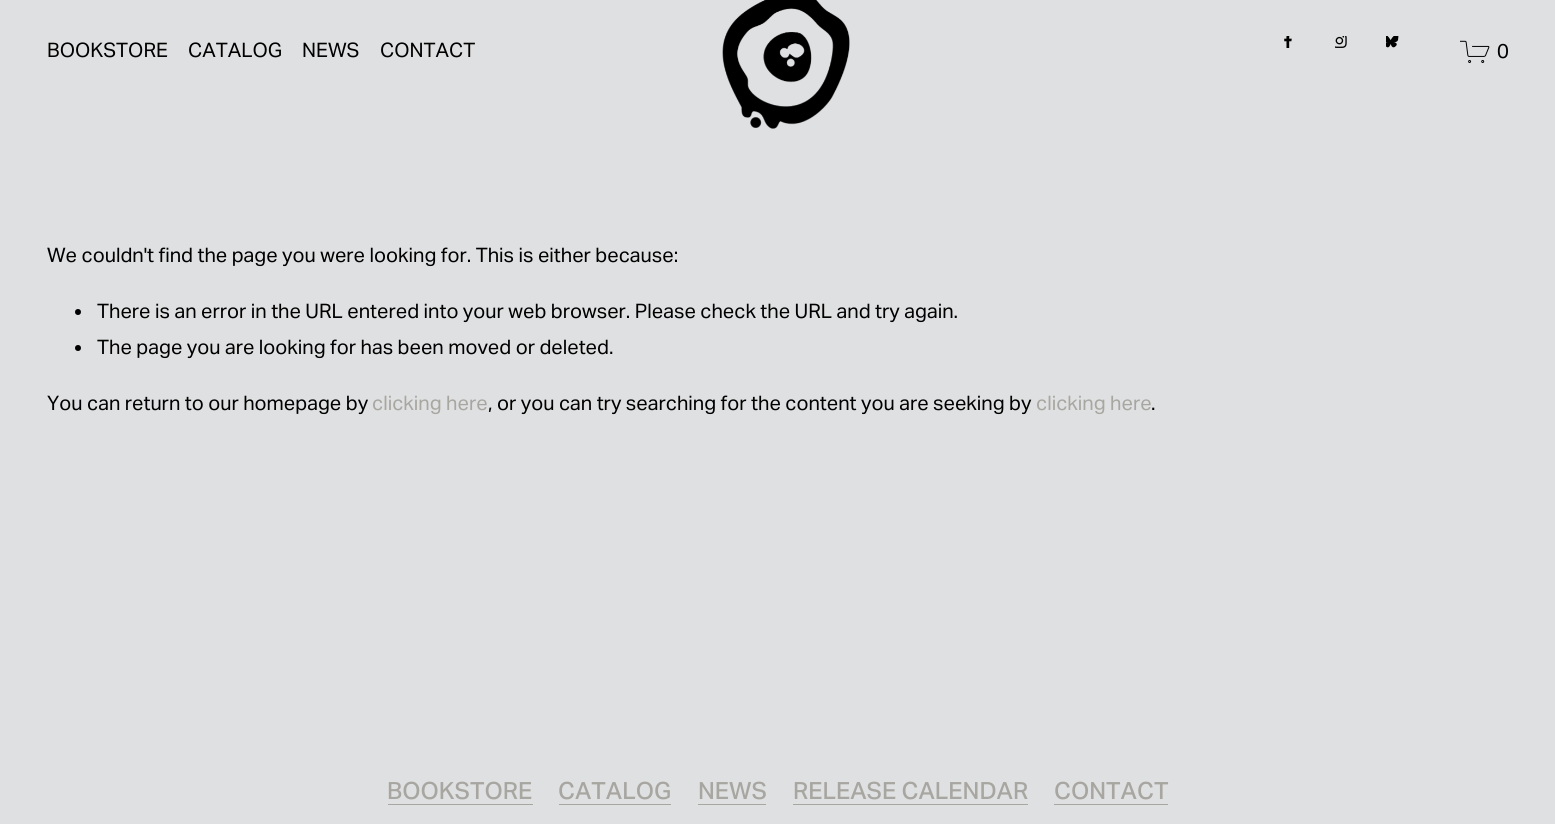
import math
import cairo

surface = cairo.ImageSurface(cairo.FORMAT_RGB24, 1555, 824)
cr = cairo.Context(surface)
options = cairo.FontOptions()
options.set_hint_metrics(cairo.HINT_METRICS_OFF)
options.set_hint_style(cairo.HINT_STYLE_NONE)
cr.set_font_options(options)
cr.set_miter_limit(4)


def rgb(code):
    cr.set_source_rgb(*(v / 255 for v in bytes.fromhex(code[-6:])))


def image(path, x, y, w, h):
    cr.save()
    cr.set_source_surface(cairo.ImageSurface.create_from_png(path), x, y)
    cr.rectangle(x, y, w, h)
    cr.fill()
    cr.restore()


rgb("#dfe0e1")
cr.paint()
image("img/1.png", 722, 0, 128, 129)
image("img/2.png", 1284, 36, 8, 12)
image("img/3.png", 1335, 36, 12, 12)
image("img/4.png", 1386, 36, 13, 12)
image("img/5.png", 1460, 40, 30, 23)
rgb("#000000")
cr.arc(78, 312, 3, 0, 2 * math.pi)
cr.fill()
cr.arc(78, 348, 3, 0, 2 * math.pi)
cr.fill()
for x, y, w, h, color in [
    (388, 804, 145, 1, "#a8a6a1"),
    (559, 804, 112, 1, "#a8a6a1"),
    (698, 804, 68, 1, "#a8a6a1"),
    (793, 804, 235, 1, "#a8a6a1"),
    (1054, 804, 114, 1, "#a8a6a1"),
]:
    rgb(color)
    cr.rectangle(x, y, w, h)
    cr.fill()
cr.select_font_face("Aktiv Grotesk")
cr.set_font_size(20)
rgb("#000000")
for x, y, s in [
    (47, 57, "BOOKSTORE"),
    (188, 57, "CATALOG"),
    (302, 57, "NEWS"),
    (380, 57, "CONTACT"),
    (1497, 58, "0"),
    (47, 262, "We couldn't find the page you were looking for. This is either because:"),
    (97, 318, "There is an error in the URL entered into your web browser. Please check the URL and try again."),
    (97, 354, "The page you are looking for has been moved or deleted."),
    (47, 410, "You can return to our homepage by"),
]:
    cr.move_to(x, y)
    cr.show_text(s)
rgb("#a8a6a1")
cr.move_to(372, 410)
cr.show_text("clicking here")
rgb("#000000")
cr.move_to(488, 410)
cr.show_text(", or you can try searching for the content you are seeking by")
rgb("#a8a6a1")
cr.move_to(1036, 410)
cr.show_text("clicking here")
rgb("#000000")
cr.move_to(1151, 410)
cr.show_text(".")
cr.select_font_face("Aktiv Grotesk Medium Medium")
cr.set_font_size(23.75)
rgb("#a8a6a1")
for x, y, s in [
    (387, 799, "BOOKSTORE"),
    (558, 799, "CATALOG"),
    (698, 799, "NEWS"),
    (793, 799, "RELEASE CALENDAR"),
    (1054, 799, "CONTACT"),
]:
    cr.move_to(x, y)
    cr.show_text(s)
surface.write_to_png("page.png")
